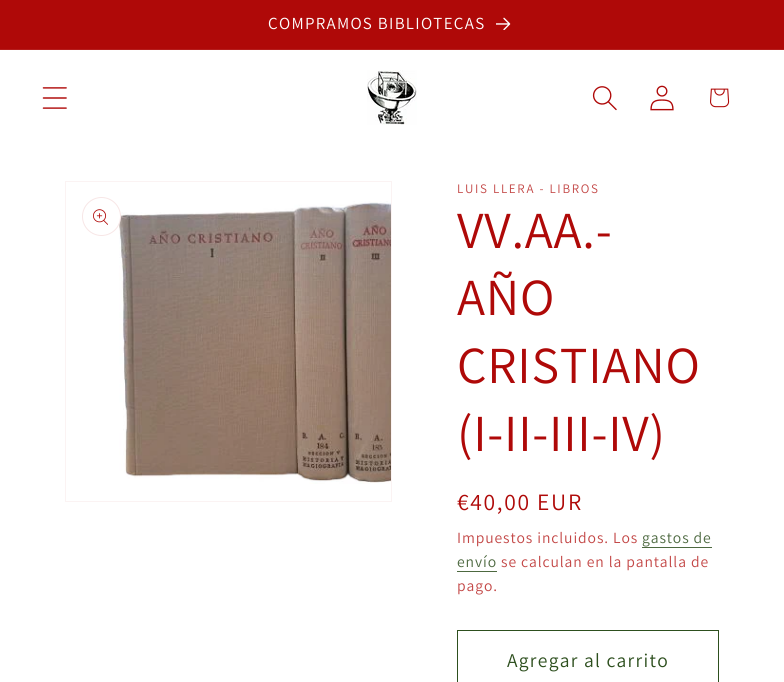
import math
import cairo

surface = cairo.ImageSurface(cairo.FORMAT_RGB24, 784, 682)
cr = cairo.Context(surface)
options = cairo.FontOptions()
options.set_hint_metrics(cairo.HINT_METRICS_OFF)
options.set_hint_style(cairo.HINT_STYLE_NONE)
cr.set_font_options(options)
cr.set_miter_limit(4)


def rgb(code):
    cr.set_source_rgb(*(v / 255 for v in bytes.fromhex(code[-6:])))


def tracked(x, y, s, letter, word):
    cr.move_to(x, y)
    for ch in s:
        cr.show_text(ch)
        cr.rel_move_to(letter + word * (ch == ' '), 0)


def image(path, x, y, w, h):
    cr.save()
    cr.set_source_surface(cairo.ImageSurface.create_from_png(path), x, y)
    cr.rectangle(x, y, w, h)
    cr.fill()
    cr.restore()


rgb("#ffffff")
cr.paint()
rgb("#af0908")
cr.rectangle(0, 0, 784, 49)
cr.fill()
rgb("#b51d1c")
cr.rectangle(0, 49, 784, 1)
cr.fill()
image("img/1.png", 496, 17, 15, 13)
image("img/2.png", 42, 87, 25, 22)
image("img/3.png", 367, 70, 50, 55)
image("img/4.png", 592, 86, 25, 25)
image("img/5.png", 650, 85, 24, 26)
image("img/6.png", 710, 88, 20, 20)
cr.rectangle(65.5, 181.5, 326, 320)
rgb("#fbf3f3")
cr.set_line_width(1)
cr.stroke()
image("img/8.png", 118, 201, 273, 283)
rgb("#ffffff")
cr.arc(101.5, 216.5, 19.5, 0, 2 * math.pi)
cr.fill()
cr.arc(101.5, 216.5, 19, 0, 2 * math.pi)
cr.set_source_rgba(0.686, 0.035, 0.031, 0.1)
cr.stroke()
image("img/7.png", 93, 209, 15, 16)
rgb("#4d6940")
cr.rectangle(642, 547, 70, 1)
cr.fill()
cr.rectangle(457, 571, 40, 1)
cr.fill()
cr.rectangle(457.5, 630.5, 261, 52)
rgb("#2d4f1e")
cr.stroke()
cr.select_font_face("Assistant")
cr.set_font_size(16.9)
rgb("#ffffff")
tracked(268, 29, "COMPRAMOS BIBLIOTECAS", 1.3, 0)
cr.set_font_size(13)
rgb("#c34746")
tracked(457, 193, "LUIS LLERA - LIBROS", 1.7, 0)
cr.set_font_size(52)
rgb("#af0908")
for x, y, s in [
    (457, 248, "VV.AA.-"),
    (457, 315, "AÑO"),
    (457, 383, "CRISTIANO"),
    (457, 451, "(I-II-III-IV)"),
]:
    tracked(x, y, s, 0.75, 0)
cr.set_font_size(23.5)
tracked(457, 510, "€40,00 EUR", 1.7, 0)
cr.set_font_size(15.6)
rgb("#c34746")
tracked(457, 543, "Impuestos incluidos. Los", 0.9, 0)
rgb("#4d6940")
tracked(642, 543, "gastos de", 0.9, 0)
tracked(457, 567, "envío", 0.9, 0)
rgb("#c34746")
tracked(501, 567, "se calculan en la pantalla de", 0.9, 0)
tracked(457, 591, "pago.", 0.9, 0)
cr.set_font_size(19.5)
rgb("#2d4f1e")
tracked(507, 667, "Agregar al carrito", 1.3, 0)
surface.write_to_png("page.png")
